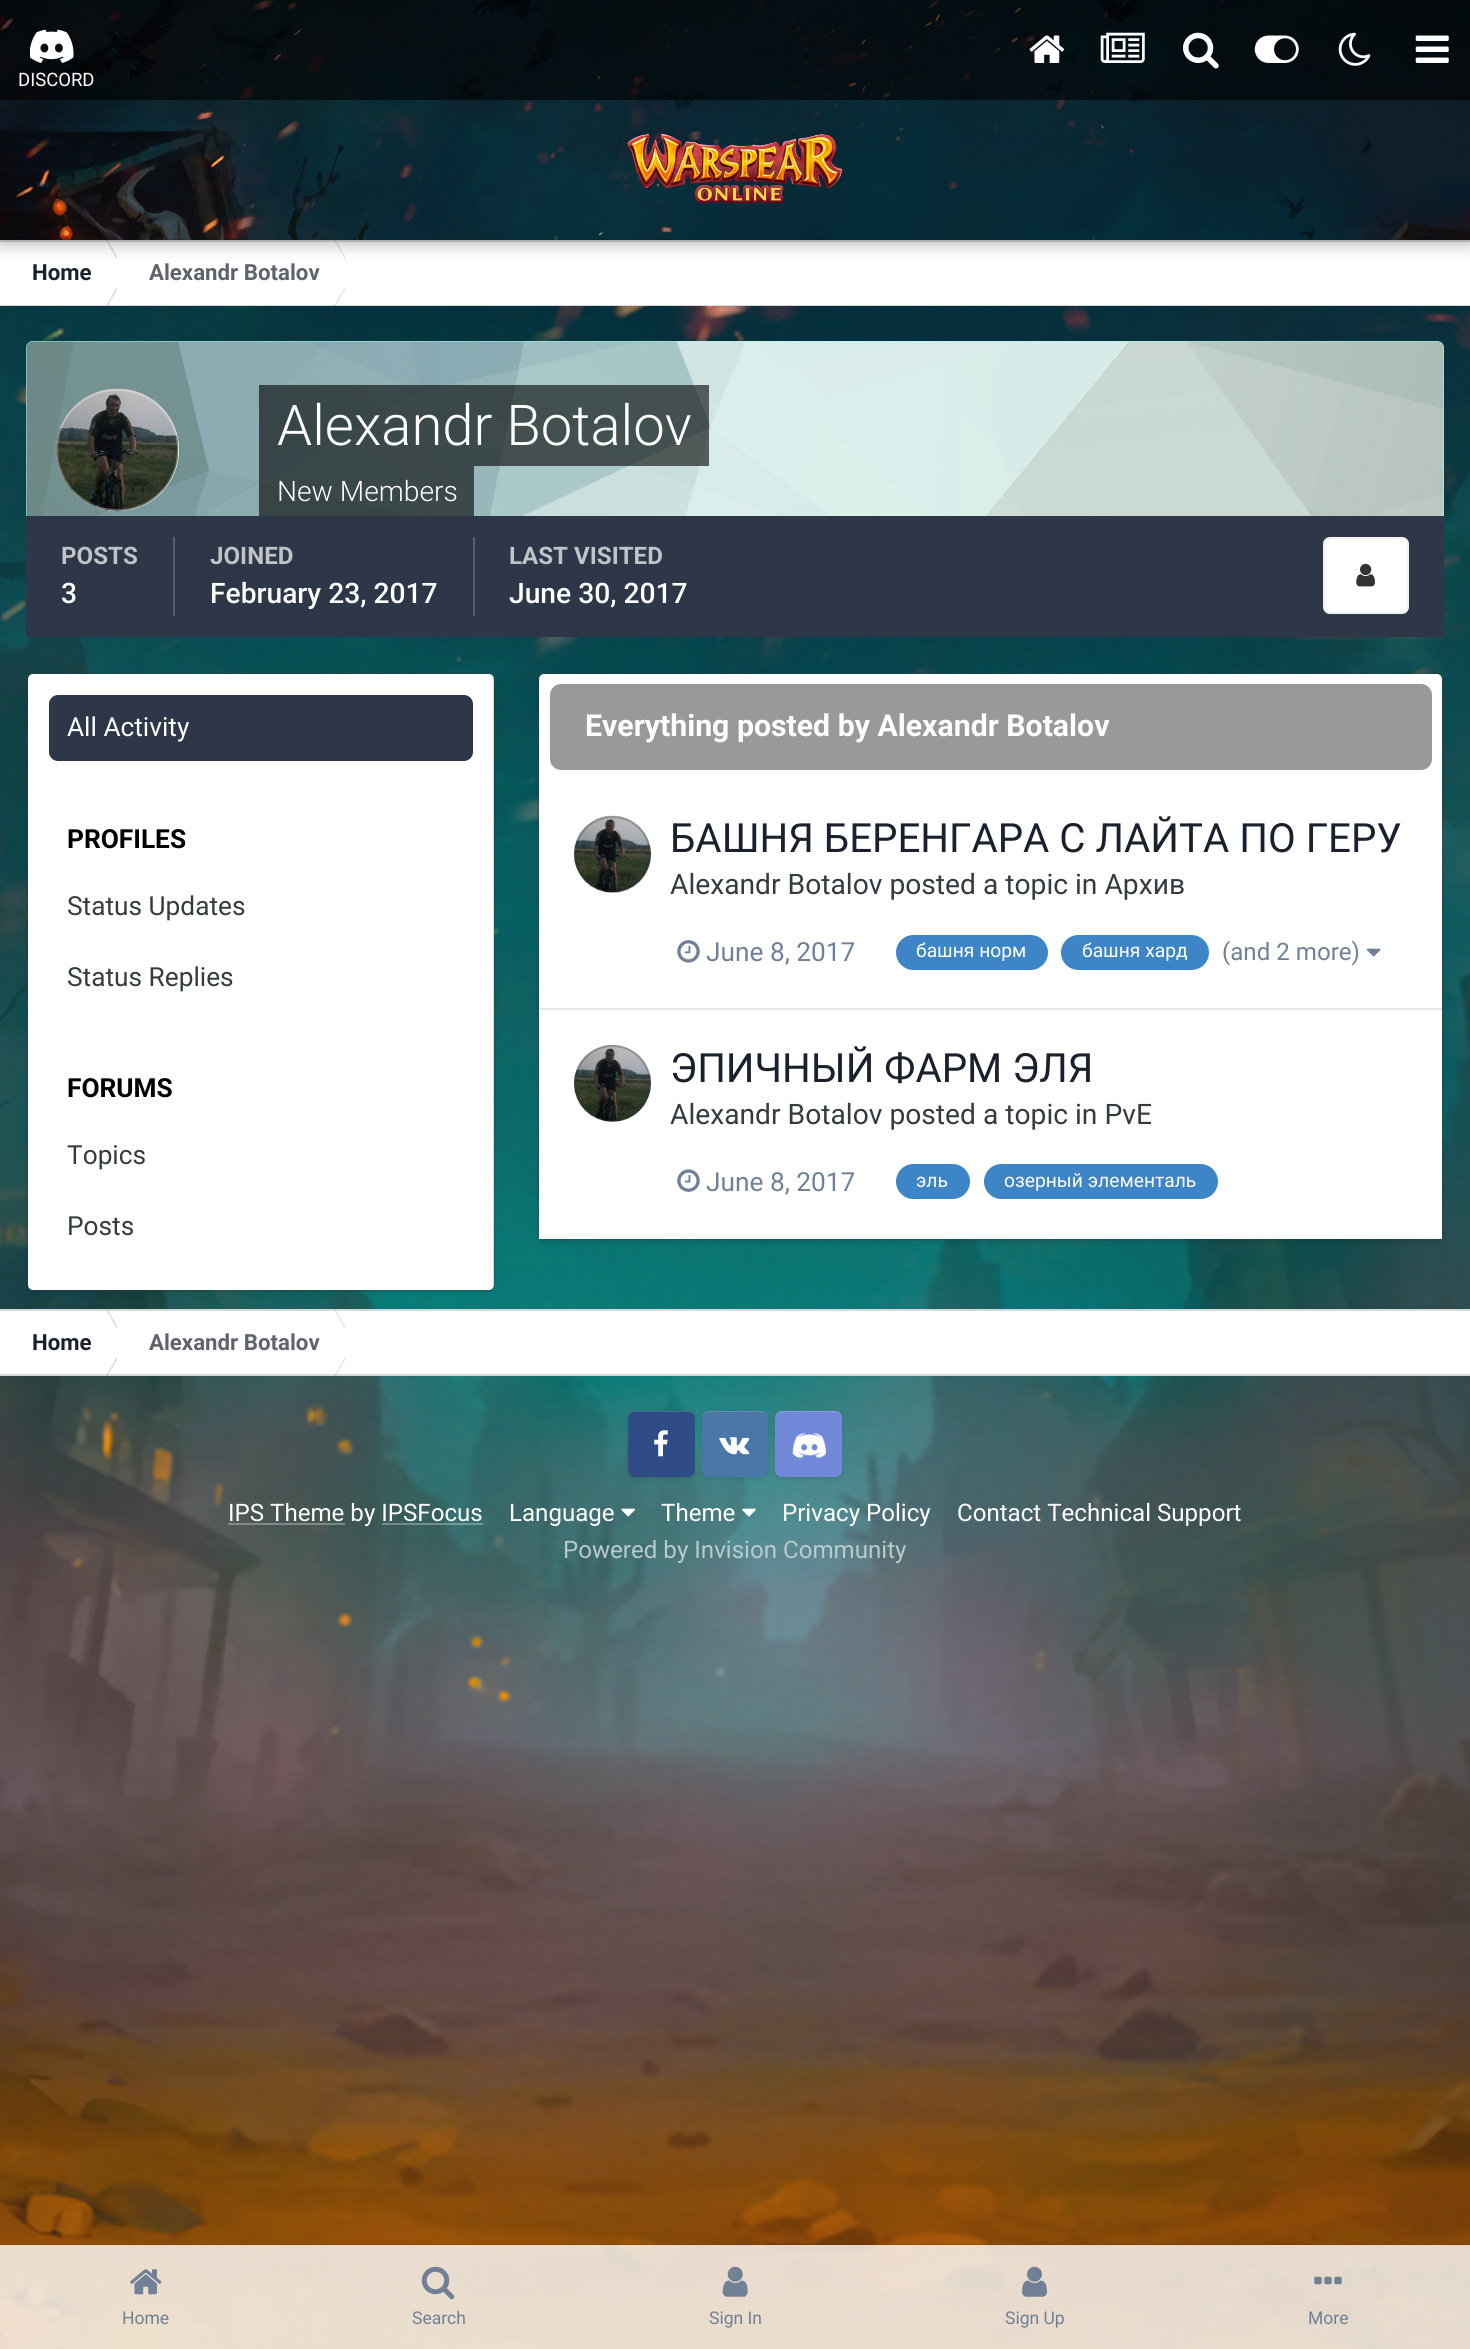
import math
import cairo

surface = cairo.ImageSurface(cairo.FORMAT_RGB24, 1470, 2349)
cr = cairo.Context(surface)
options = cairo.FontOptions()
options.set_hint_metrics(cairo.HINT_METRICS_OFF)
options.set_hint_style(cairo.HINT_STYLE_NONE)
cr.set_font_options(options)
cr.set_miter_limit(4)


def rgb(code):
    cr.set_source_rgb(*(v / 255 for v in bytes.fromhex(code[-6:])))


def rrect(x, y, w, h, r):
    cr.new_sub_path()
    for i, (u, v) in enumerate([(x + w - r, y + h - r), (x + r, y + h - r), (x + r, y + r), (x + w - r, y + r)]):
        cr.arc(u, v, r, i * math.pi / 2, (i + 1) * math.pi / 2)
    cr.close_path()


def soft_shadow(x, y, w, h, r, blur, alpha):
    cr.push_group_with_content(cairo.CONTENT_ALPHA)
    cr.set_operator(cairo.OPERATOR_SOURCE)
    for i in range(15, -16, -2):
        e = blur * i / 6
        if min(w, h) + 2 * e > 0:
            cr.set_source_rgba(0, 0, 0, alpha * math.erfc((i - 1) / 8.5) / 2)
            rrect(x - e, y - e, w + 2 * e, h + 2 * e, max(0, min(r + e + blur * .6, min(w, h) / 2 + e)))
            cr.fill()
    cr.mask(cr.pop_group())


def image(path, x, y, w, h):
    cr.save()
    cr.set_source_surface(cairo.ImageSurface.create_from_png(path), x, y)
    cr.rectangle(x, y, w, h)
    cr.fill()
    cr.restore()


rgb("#ffffff")
cr.paint()
image("img/1.png", 0, 239, 1470, 2110)
rgb("#ffffff")
cr.rectangle(0, 240, 1470, 66)
cr.fill()
cr.save()
cr.rectangle(0, 240, 117, 66)
cr.clip()
rgb("#d7d8d9")
cr.new_path()
cr.move_to(106, 240)
cr.line_to(107.5, 240)
cr.line_to(127, 273)
cr.line_to(125, 273)
cr.close_path()
cr.fill()
cr.restore()
cr.save()
cr.rectangle(117, 240, 228, 66)
cr.clip()
rgb("#e3e4e4")
cr.new_path()
cr.move_to(334, 240)
cr.line_to(335.5, 240)
cr.line_to(355, 273)
cr.line_to(353, 273)
cr.close_path()
cr.fill()
cr.restore()
cr.set_source_rgba(0.208, 0.235, 0.255, 0.2)
cr.rectangle(0, 240, 1470, 2)
cr.fill()
rgb("#000000")
soft_shadow(0, 2, 1470, 240, 0, 9, 0.35)
image("img/2.png", 0, 0, 1470, 240)
cr.set_source_rgba(0, 0, 0, 0.6)
cr.rectangle(0, 0, 1470, 100)
cr.fill()
image("img/3.png", 1029, 35, 36, 28)
image("img/4.png", 1100, 32, 45, 31)
image("img/5.png", 1183, 32, 36, 37)
image("img/6.png", 1254, 35, 45, 28)
image("img/7.png", 1338, 32, 33, 34)
image("img/8.png", 1415, 35, 34, 28)
image("img/9.png", 30, 29, 44, 34)
image("img/10.png", 627, 133, 215, 71)
cr.save()
cr.rectangle(0, 240, 117, 66)
cr.clip()
rgb("#d7d8d9")
cr.new_path()
cr.move_to(106, 306)
cr.line_to(107.5, 306)
cr.line_to(127, 273)
cr.line_to(125, 273)
cr.close_path()
cr.fill()
cr.restore()
cr.save()
cr.rectangle(117, 240, 228, 66)
cr.clip()
rgb("#e3e4e4")
cr.new_path()
cr.move_to(334, 306)
cr.line_to(335.5, 306)
cr.line_to(355, 273)
cr.line_to(353, 273)
cr.close_path()
cr.fill()
cr.restore()
cr.set_source_rgba(0.208, 0.235, 0.255, 0.2)
cr.rectangle(0, 305, 1470, 1)
cr.fill()
rgb("#99fff5")
cr.new_path()
cr.move_to(33, 341)
cr.line_to(1437, 341)
cr.curve_to(1441, 341, 1444, 344, 1444, 348)
cr.line_to(1444, 516)
cr.line_to(26, 516)
cr.line_to(26, 348)
cr.curve_to(26, 344, 29, 341, 33, 341)
cr.close_path()
cr.fill()
image("img/11.png", 26, 341, 1418, 175)
rgb("#ffffff")
rrect(56, 389, 123, 122, 61)
cr.fill()
image("img/12.png", 56, 388, 123, 123)
rrect(57, 390, 121, 120, 60)
cr.set_source_rgba(1, 1, 1, 0.3)
cr.stroke()
cr.set_source_rgba(0, 0, 0, 0.6)
cr.rectangle(259, 385, 450, 81)
cr.fill()
cr.rectangle(259, 466, 215, 50)
cr.fill()
rgb("#2d3748")
cr.rectangle(26, 516, 1418, 121)
cr.fill()
rgb("#575f6d")
cr.rectangle(173, 537, 2, 79)
cr.rectangle(473, 537, 2, 79)
cr.fill()
rgb("#ffffff")
rrect(1323, 537, 86, 77, 7)
cr.fill()
rrect(1324, 538, 84, 75, 6)
cr.set_source_rgba(0.2, 0.2, 0.2, 0.07)
cr.stroke()
image("img/13.png", 1356, 563, 19, 24)
rgb("#000000")
soft_shadow(28, 677, 466, 616, 5, 3.5, 0.1)
rgb("#ffffff")
rrect(28, 674, 466, 616, 5)
cr.fill()
rrect(27, 673, 467, 618, 6)
cr.set_source_rgba(0.208, 0.235, 0.255, 0.2)
cr.stroke()
rgb("#2d3748")
rrect(49, 695, 424, 66, 9)
cr.fill()
rgb("#000000")
soft_shadow(539, 677, 903, 566, 5, 3.5, 0.1)
rgb("#ffffff")
rrect(539, 674, 903, 565, 5)
cr.fill()
rrect(538, 673, 905, 567, 6)
cr.set_source_rgba(0.208, 0.235, 0.255, 0.2)
cr.stroke()
rgb("#999999")
rrect(550, 684, 882, 86, 11)
cr.fill()
rgb("#e6e6e6")
cr.rectangle(539, 1008, 903, 2)
cr.fill()
image("img/14.png", 574, 815, 77, 78)
cr.arc(612.5, 854.5, 37.5, 0, 2 * math.pi)
cr.set_source_rgba(0.208, 0.235, 0.255, 0.3)
cr.stroke()
image("img/15.png", 677, 940, 23, 23)
rgb("#3d85c6")
rrect(896, 935, 152, 35, 17.5)
cr.fill()
rrect(1061, 935, 148, 35, 17.5)
cr.fill()
image("img/16.png", 1366, 948, 15, 9)
rgb("#ffffff")
cr.rectangle(539, 1234, 903, 5)
cr.fill()
image("img/17.png", 574, 1045, 77, 77)
cr.arc(612.5, 1083.5, 37.5, 0, 2 * math.pi)
cr.set_source_rgba(0.208, 0.235, 0.255, 0.3)
cr.stroke()
image("img/18.png", 677, 1169, 23, 23)
rgb("#3d85c6")
rrect(896, 1164, 74, 35, 17.5)
cr.fill()
rrect(984, 1164, 234, 35, 17.5)
cr.fill()
rgb("#ffffff")
cr.rectangle(0, 1309, 1470, 67)
cr.fill()
cr.save()
cr.rectangle(0, 1309, 117, 67)
cr.clip()
rgb("#d7d8d9")
cr.new_path()
cr.move_to(106, 1309.5)
cr.line_to(107.5, 1309.5)
cr.line_to(127, 1343)
cr.line_to(125, 1343)
cr.close_path()
cr.fill()
cr.restore()
cr.save()
cr.rectangle(117, 1309, 228, 67)
cr.clip()
rgb("#e3e4e4")
cr.new_path()
cr.move_to(334, 1309.5)
cr.line_to(335.5, 1309.5)
cr.line_to(355, 1343)
cr.line_to(353, 1343)
cr.close_path()
cr.fill()
cr.restore()
cr.set_source_rgba(0.208, 0.235, 0.255, 0.2)
cr.rectangle(0, 1309, 1470, 2)
cr.fill()
cr.save()
cr.rectangle(0, 1309, 117, 67)
cr.clip()
rgb("#d7d8d9")
cr.new_path()
cr.move_to(106, 1376)
cr.line_to(107.5, 1376)
cr.line_to(127, 1343)
cr.line_to(125, 1343)
cr.close_path()
cr.fill()
cr.restore()
cr.save()
cr.rectangle(117, 1309, 228, 67)
cr.clip()
rgb("#e3e4e4")
cr.new_path()
cr.move_to(334, 1376)
cr.line_to(335.5, 1376)
cr.line_to(355, 1343)
cr.line_to(353, 1343)
cr.close_path()
cr.fill()
cr.restore()
cr.rectangle(0, 1374, 1470, 2)
cr.fill()
rgb("#000000")
soft_shadow(628, 1412, 67, 67, 7, 2.5, 0.1)
rgb("#304c87")
rrect(628, 1411, 67, 66, 7)
cr.fill()
cr.set_source_rgba(1, 1, 1, 0.15)
cr.new_path()
cr.move_to(635, 1412)
cr.curve_to(631, 1412, 628, 1415, 628, 1419)
cr.curve_to(628, 1409, 637, 1411, 644, 1411)
cr.line_to(679, 1411)
cr.curve_to(686, 1411, 695, 1409, 695, 1419)
cr.curve_to(695, 1415, 692, 1412, 688, 1412)
cr.close_path()
cr.fill()
image("img/19.png", 654, 1430, 14, 27)
rgb("#000000")
soft_shadow(702, 1412, 66, 67, 7, 2.5, 0.1)
rgb("#4a76a8")
rrect(702, 1411, 66, 66, 7)
cr.fill()
cr.set_source_rgba(1, 1, 1, 0.15)
cr.new_path()
cr.move_to(709, 1412)
cr.curve_to(705, 1412, 702, 1415, 702, 1419)
cr.curve_to(702, 1409, 711, 1411, 718, 1411)
cr.line_to(752, 1411)
cr.curve_to(759, 1411, 768, 1409, 768, 1419)
cr.curve_to(768, 1415, 765, 1412, 761, 1412)
cr.close_path()
cr.fill()
image("img/20.png", 719, 1437, 31, 18)
rgb("#000000")
soft_shadow(775, 1412, 67, 67, 7, 2.5, 0.1)
rgb("#7289da")
rrect(775, 1411, 67, 66, 7)
cr.fill()
cr.set_source_rgba(1, 1, 1, 0.15)
cr.new_path()
cr.move_to(782, 1412)
cr.curve_to(778, 1412, 775, 1415, 775, 1419)
cr.curve_to(775, 1409, 784, 1411, 791, 1411)
cr.line_to(826, 1411)
cr.curve_to(833, 1411, 842, 1409, 842, 1419)
cr.curve_to(842, 1415, 839, 1412, 835, 1412)
cr.close_path()
cr.fill()
image("img/21.png", 792, 1433, 34, 25)
cr.set_source_rgba(1, 1, 1, 0.3)
cr.rectangle(228, 1523, 117, 2)
cr.fill()
image("img/22.png", 621, 1508, 14, 9)
image("img/23.png", 742, 1508, 14, 9)
cr.set_source_rgba(0, 0, 0, 0.1)
cr.rectangle(0, 2244, 1470, 1)
cr.fill()
cr.set_source_rgba(1, 1, 1, 0.8)
cr.rectangle(0, 2245, 1470, 104)
cr.fill()
image("img/24.png", 130, 2269, 32, 26)
image("img/25.png", 421, 2266, 34, 34)
image("img/26.png", 722, 2266, 26, 31)
image("img/27.png", 1022, 2266, 25, 31)
image("img/28.png", 1314, 2276, 28, 9)
cr.select_font_face("Roboto")
cr.set_font_size(18.5)
rgb("#ffffff")
cr.move_to(18, 86)
cr.show_text("DISCORD")
cr.select_font_face("Roboto", cairo.FONT_SLANT_NORMAL, cairo.FONT_WEIGHT_BOLD)
cr.set_font_size(22.25)
rgb("#1a202c")
cr.move_to(32, 280)
cr.show_text("Home")
rgb("#5f636b")
cr.move_to(149, 280)
cr.show_text("Alexandr Botalov")
cr.select_font_face("Roboto Light")
cr.set_font_size(56.25)
rgb("#ffffff")
cr.move_to(277, 445)
cr.show_text("Alexandr Botalov")
cr.set_font_size(28.2)
cr.move_to(277, 501)
cr.show_text("New Members")
cr.select_font_face("Roboto", cairo.FONT_SLANT_NORMAL, cairo.FONT_WEIGHT_BOLD)
cr.set_font_size(24.1)
rgb("#c0c3c8")
cr.move_to(61, 564)
cr.show_text("POSTS")
cr.select_font_face("Roboto Medium")
cr.set_font_size(28.2)
rgb("#ffffff")
cr.move_to(61, 603)
cr.show_text("3")
cr.select_font_face("Roboto", cairo.FONT_SLANT_NORMAL, cairo.FONT_WEIGHT_BOLD)
cr.set_font_size(24.1)
rgb("#c0c3c8")
cr.move_to(210, 564)
cr.show_text("JOINED")
cr.select_font_face("Roboto Medium")
cr.set_font_size(28.2)
rgb("#ffffff")
cr.move_to(210, 603)
cr.show_text("February 23, 2017")
cr.select_font_face("Roboto", cairo.FONT_SLANT_NORMAL, cairo.FONT_WEIGHT_BOLD)
cr.set_font_size(24.1)
rgb("#c0c3c8")
cr.move_to(509, 564)
cr.show_text("LAST VISITED")
cr.select_font_face("Roboto Medium")
cr.set_font_size(28.2)
rgb("#ffffff")
cr.move_to(509, 603)
cr.show_text("June 30, 2017")
cr.select_font_face("Roboto")
cr.set_font_size(26.25)
cr.move_to(67, 736)
cr.show_text("All Activity")
cr.select_font_face("Roboto", cairo.FONT_SLANT_NORMAL, cairo.FONT_WEIGHT_BOLD)
rgb("#000000")
cr.move_to(67, 848)
cr.show_text("PROFILES")
cr.select_font_face("Roboto")
rgb("#353c41")
cr.move_to(67, 915)
cr.show_text("Status Updates")
cr.move_to(67, 986)
cr.show_text("Status Replies")
cr.select_font_face("Roboto", cairo.FONT_SLANT_NORMAL, cairo.FONT_WEIGHT_BOLD)
rgb("#000000")
cr.move_to(67, 1097)
cr.show_text("FORUMS")
cr.select_font_face("Roboto")
rgb("#353c41")
cr.move_to(67, 1164)
cr.show_text("Topics")
cr.move_to(67, 1235)
cr.show_text("Posts")
cr.select_font_face("Roboto", cairo.FONT_SLANT_NORMAL, cairo.FONT_WEIGHT_BOLD)
cr.set_font_size(30.25)
rgb("#ffffff")
cr.move_to(585, 736)
cr.show_text("Everything posted by Alexandr Botalov")
cr.select_font_face("Roboto")
cr.set_font_size(40.25)
rgb("#1a202c")
cr.move_to(670, 852)
cr.show_text("БАШНЯ БЕРЕНГАРА С ЛАЙТА ПО ГЕРУ")
cr.set_font_size(28.2)
rgb("#353c41")
cr.move_to(670, 894)
cr.show_text("Alexandr Botalov posted a topic in Архив")
cr.set_font_size(26.25)
rgb("#718096")
cr.move_to(706, 961)
cr.show_text("June 8, 2017")
cr.set_font_size(19.25)
rgb("#ffffff")
cr.move_to(916, 957)
cr.show_text("башня норм")
cr.move_to(1082, 957)
cr.show_text("башня хард")
cr.set_font_size(24.1)
rgb("#718096")
cr.move_to(1222, 960)
cr.show_text("(and 2 more)")
cr.set_font_size(40.25)
rgb("#1a202c")
cr.move_to(670, 1082)
cr.show_text("ЭПИЧНЫЙ ФАРМ ЭЛЯ")
cr.set_font_size(28.2)
rgb("#353c41")
cr.move_to(670, 1124)
cr.show_text("Alexandr Botalov posted a topic in PvE")
cr.set_font_size(26.25)
rgb("#718096")
cr.move_to(706, 1191)
cr.show_text("June 8, 2017")
cr.set_font_size(19.25)
rgb("#ffffff")
cr.move_to(916, 1187)
cr.show_text("эль")
cr.save()
cr.rectangle(1005, 1164, 192, 35)
cr.clip()
cr.move_to(1004, 1187)
cr.show_text("озерный элементаль")
cr.restore()
cr.select_font_face("Roboto", cairo.FONT_SLANT_NORMAL, cairo.FONT_WEIGHT_BOLD)
cr.set_font_size(22.25)
rgb("#1a202c")
cr.move_to(32, 1350)
cr.show_text("Home")
rgb("#5f636b")
cr.move_to(149, 1350)
cr.show_text("Alexandr Botalov")
cr.select_font_face("Roboto")
cr.set_font_size(24.1)
rgb("#ffffff")
cr.move_to(228, 1521)
cr.show_text("IPS Theme by IPSFocus")
cr.set_source_rgba(1, 1, 1, 0.3)
cr.rectangle(382, 1523, 101, 2)
cr.fill()
rgb("#ffffff")
for x, y, s in [
    (509, 1521, "Language"),
    (661, 1521, "Theme"),
    (782, 1521, "Privacy Policy"),
    (957, 1521, "Contact Technical Support"),
]:
    cr.move_to(x, y)
    cr.show_text(s)
rgb("#b8cacc")
cr.move_to(563, 1558)
cr.show_text("Powered by Invision Community")
cr.set_font_size(17.5)
rgb("#718096")
for x, y, s in [
    (122, 2324, "Home"),
    (412, 2324, "Search"),
    (709, 2324, "Sign In"),
    (1005, 2324, "Sign Up"),
    (1308, 2324, "More"),
]:
    cr.move_to(x, y)
    cr.show_text(s)
surface.write_to_png("page.png")
